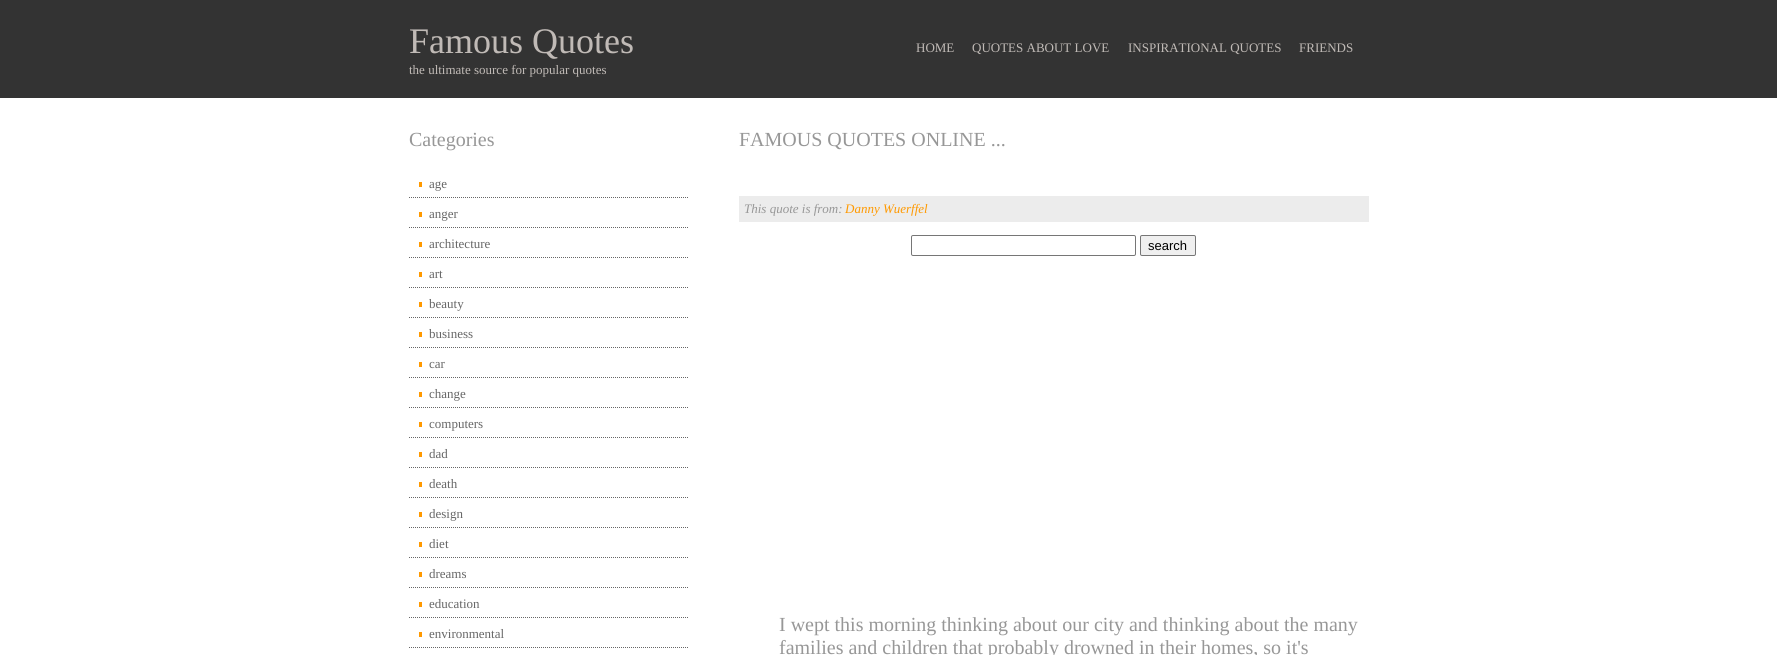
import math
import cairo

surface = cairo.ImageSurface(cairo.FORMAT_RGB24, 1777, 655)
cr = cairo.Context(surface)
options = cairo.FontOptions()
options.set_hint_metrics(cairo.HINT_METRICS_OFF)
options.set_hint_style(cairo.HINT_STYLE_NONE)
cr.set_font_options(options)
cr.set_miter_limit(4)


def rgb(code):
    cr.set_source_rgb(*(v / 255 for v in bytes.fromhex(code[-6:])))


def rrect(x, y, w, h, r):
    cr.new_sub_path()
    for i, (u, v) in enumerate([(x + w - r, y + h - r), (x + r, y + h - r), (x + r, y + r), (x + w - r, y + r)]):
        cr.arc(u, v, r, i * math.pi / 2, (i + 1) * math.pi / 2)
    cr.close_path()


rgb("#333333")
cr.paint()
rgb("#ffffff")
cr.rectangle(0, 98, 1777, 557)
cr.fill()
rgb("#ff9900")
cr.rectangle(419, 182, 3, 5)
cr.fill()
cr.new_path()
cr.move_to(409, 197.5)
cr.line_to(689, 197.5)
rgb("#666666")
cr.set_line_width(1)
cr.set_dash([1, 1])
cr.stroke()
rgb("#ff9900")
cr.rectangle(419, 212, 3, 5)
cr.fill()
cr.new_path()
cr.move_to(409, 227.5)
cr.line_to(689, 227.5)
rgb("#666666")
cr.stroke()
rgb("#ff9900")
cr.rectangle(419, 242, 3, 5)
cr.fill()
cr.new_path()
cr.move_to(409, 257.5)
cr.line_to(689, 257.5)
rgb("#666666")
cr.stroke()
rgb("#ff9900")
cr.rectangle(419, 272, 3, 5)
cr.fill()
cr.new_path()
cr.move_to(409, 287.5)
cr.line_to(689, 287.5)
rgb("#666666")
cr.stroke()
rgb("#ff9900")
cr.rectangle(419, 302, 3, 5)
cr.fill()
cr.new_path()
cr.move_to(409, 317.5)
cr.line_to(689, 317.5)
rgb("#666666")
cr.stroke()
rgb("#ff9900")
cr.rectangle(419, 332, 3, 5)
cr.fill()
cr.new_path()
cr.move_to(409, 347.5)
cr.line_to(689, 347.5)
rgb("#666666")
cr.stroke()
rgb("#ff9900")
cr.rectangle(419, 362, 3, 5)
cr.fill()
cr.new_path()
cr.move_to(409, 377.5)
cr.line_to(689, 377.5)
rgb("#666666")
cr.stroke()
rgb("#ff9900")
cr.rectangle(419, 392, 3, 5)
cr.fill()
cr.new_path()
cr.move_to(409, 407.5)
cr.line_to(689, 407.5)
rgb("#666666")
cr.stroke()
rgb("#ff9900")
cr.rectangle(419, 422, 3, 5)
cr.fill()
cr.new_path()
cr.move_to(409, 437.5)
cr.line_to(689, 437.5)
rgb("#666666")
cr.stroke()
rgb("#ff9900")
cr.rectangle(419, 452, 3, 5)
cr.fill()
cr.new_path()
cr.move_to(409, 467.5)
cr.line_to(689, 467.5)
rgb("#666666")
cr.stroke()
rgb("#ff9900")
cr.rectangle(419, 482, 3, 5)
cr.fill()
cr.new_path()
cr.move_to(409, 497.5)
cr.line_to(689, 497.5)
rgb("#666666")
cr.stroke()
rgb("#ff9900")
cr.rectangle(419, 512, 3, 5)
cr.fill()
cr.new_path()
cr.move_to(409, 527.5)
cr.line_to(689, 527.5)
rgb("#666666")
cr.stroke()
rgb("#ff9900")
cr.rectangle(419, 542, 3, 5)
cr.fill()
cr.new_path()
cr.move_to(409, 557.5)
cr.line_to(689, 557.5)
rgb("#666666")
cr.stroke()
rgb("#ff9900")
cr.rectangle(419, 572, 3, 5)
cr.fill()
cr.new_path()
cr.move_to(409, 587.5)
cr.line_to(689, 587.5)
rgb("#666666")
cr.stroke()
rgb("#ff9900")
cr.rectangle(419, 602, 3, 5)
cr.fill()
cr.new_path()
cr.move_to(409, 617.5)
cr.line_to(689, 617.5)
rgb("#666666")
cr.stroke()
rgb("#ff9900")
cr.rectangle(419, 632, 3, 5)
cr.fill()
cr.new_path()
cr.move_to(409, 647.5)
cr.line_to(689, 647.5)
rgb("#666666")
cr.stroke()
rgb("#ececec")
cr.rectangle(739, 196, 630, 26)
cr.fill()
rrect(911.5, 235.5, 224, 20, 1.5)
rgb("#767676")
cr.set_dash([])
cr.stroke()
rgb("#efefef")
rrect(1140.5, 235.5, 55, 20, 1.5)
cr.fill_preserve()
rgb("#767676")
cr.stroke()
cr.select_font_face("Liberation Serif")
cr.set_font_size(36)
rgb("#c0bab6")
cr.move_to(409, 53)
cr.show_text("Famous Quotes")
cr.set_font_size(13)
for x, y, s in [
    (409, 74, "the ultimate source for popular quotes"),
    (916, 52, "HOME"),
    (972, 52, "QUOTES ABOUT LOVE"),
    (1128, 52, "INSPIRATIONAL QUOTES"),
    (1299, 52, "FRIENDS"),
]:
    cr.move_to(x, y)
    cr.show_text(s)
cr.set_font_size(20)
rgb("#979797")
cr.move_to(409, 146)
cr.show_text("Categories")
cr.set_font_size(13)
rgb("#666666")
for x, y, s in [
    (429, 188, "age"),
    (429, 218, "anger"),
    (429, 248, "architecture"),
    (429, 278, "art"),
    (429, 308, "beauty"),
    (429, 338, "business"),
    (429, 368, "car"),
    (429, 398, "change"),
    (429, 428, "computers"),
    (429, 458, "dad"),
    (429, 488, "death"),
    (429, 518, "design"),
    (429, 548, "diet"),
    (429, 578, "dreams"),
    (429, 608, "education"),
    (429, 638, "environmental"),
]:
    cr.move_to(x, y)
    cr.show_text(s)
cr.set_font_size(20)
rgb("#979797")
cr.move_to(739, 146)
cr.show_text("FAMOUS QUOTES ONLINE ...")
cr.select_font_face("Liberation Serif", cairo.FONT_SLANT_ITALIC)
cr.set_font_size(13)
cr.move_to(744, 213)
cr.show_text("This quote is from:")
rgb("#ff9900")
cr.move_to(845, 213)
cr.show_text("Danny Wuerffel")
cr.select_font_face("Liberation Sans")
rgb("#000000")
cr.move_to(1148, 250)
cr.show_text("search")
cr.select_font_face("Liberation Serif")
cr.set_font_size(20)
rgb("#979797")
cr.move_to(779, 631)
cr.show_text("I wept this morning thinking about our city and thinking about the many")
cr.move_to(779, 654)
cr.show_text("families and children that probably drowned in their homes, so it's")
surface.write_to_png("page.png")
